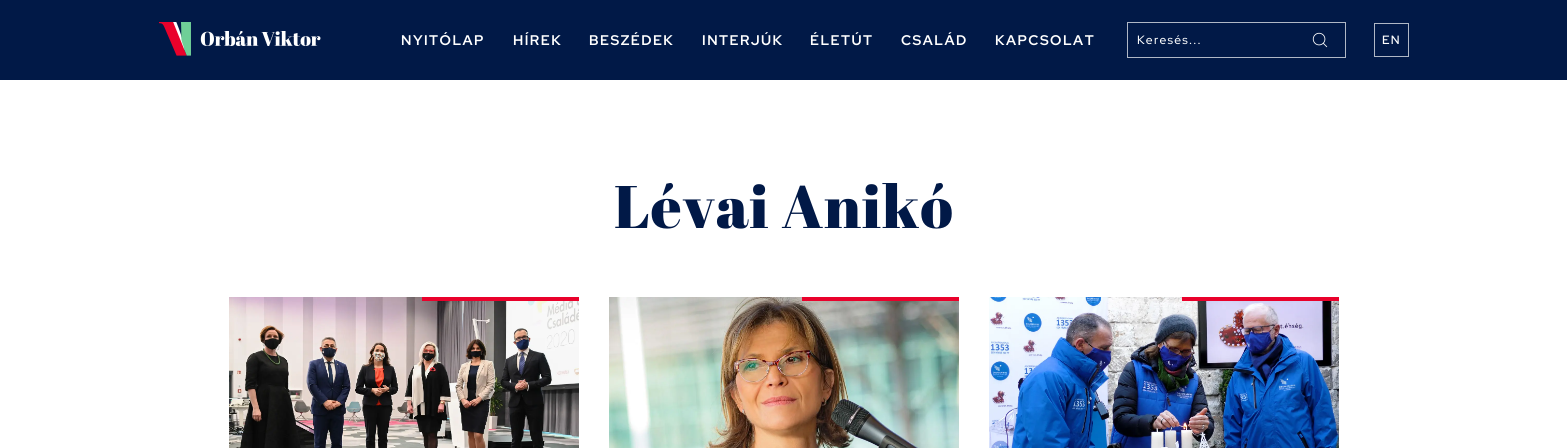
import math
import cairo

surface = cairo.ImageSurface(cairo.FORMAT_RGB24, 1567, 448)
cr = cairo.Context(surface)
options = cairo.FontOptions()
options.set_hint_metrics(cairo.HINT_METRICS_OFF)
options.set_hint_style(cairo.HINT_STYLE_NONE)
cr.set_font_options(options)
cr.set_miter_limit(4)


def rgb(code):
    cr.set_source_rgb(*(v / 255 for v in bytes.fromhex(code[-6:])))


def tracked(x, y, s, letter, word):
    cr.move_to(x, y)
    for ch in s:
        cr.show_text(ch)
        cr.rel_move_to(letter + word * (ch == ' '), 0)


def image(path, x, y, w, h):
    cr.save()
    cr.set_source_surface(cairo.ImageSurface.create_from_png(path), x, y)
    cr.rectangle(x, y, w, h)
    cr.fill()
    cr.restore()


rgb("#ffffff")
cr.paint()
rgb("#011947")
cr.rectangle(0, 0, 1567, 80)
cr.fill()
image("img/1.png", 159, 22, 162, 34)
cr.rectangle(1127.5, 22.5, 218, 35)
rgb("#b0b8c6")
cr.set_line_width(1)
cr.stroke()
image("img/2.png", 1312, 32, 16, 16)
cr.rectangle(1374.5, 23.5, 34, 33)
cr.stroke()
image("img/3.png", 229, 297, 350, 151)
rgb("#e9012b")
cr.rectangle(422, 297, 157, 4)
cr.fill()
image("img/4.png", 609, 297, 350, 151)
cr.rectangle(802, 297, 157, 4)
cr.fill()
image("img/5.png", 989, 297, 350, 151)
cr.rectangle(1182, 297, 157, 4)
cr.fill()
cr.select_font_face("Red Hat Display", cairo.FONT_SLANT_NORMAL, cairo.FONT_WEIGHT_BOLD)
cr.set_font_size(14)
rgb("#ffffff")
for x, y, s in [
    (401, 45, "NYITÓLAP"),
    (513, 45, "HÍREK"),
    (589, 45, "BESZÉDEK"),
    (702, 45, "INTERJÚK"),
    (810, 45, "ÉLETÚT"),
    (901, 45, "CSALÁD"),
    (995, 45, "KAPCSOLAT"),
]:
    tracked(x, y, s, 1.5, 0)
cr.select_font_face("Red Hat Display Medium")
cr.set_font_size(12)
tracked(1137, 44, "Keresés...", 1.25, 0)
cr.select_font_face("Red Hat Display SemiBold")
tracked(1382, 44, "EN", 1.25, 0)
cr.select_font_face("Abril Fatface")
cr.set_font_size(60)
rgb("#011947")
tracked(614, 228, "Lévai Anikó", 1, 0)
surface.write_to_png("page.png")
